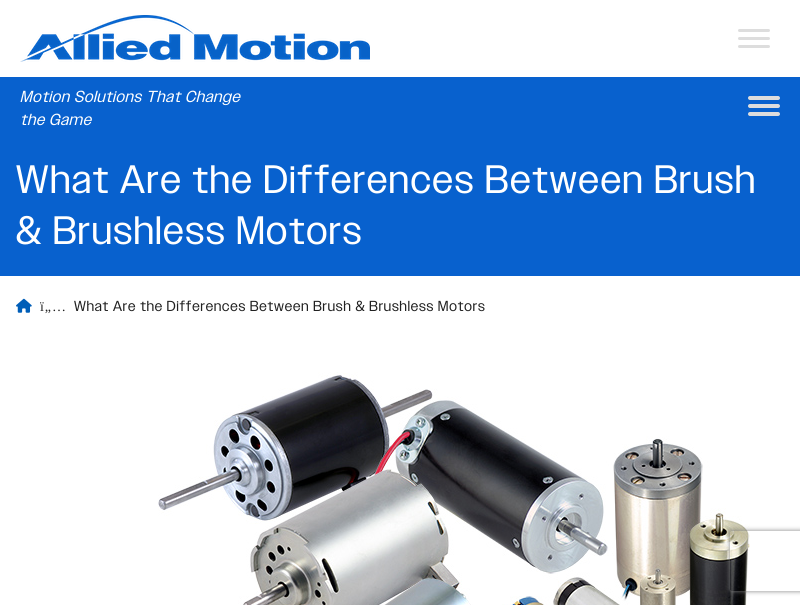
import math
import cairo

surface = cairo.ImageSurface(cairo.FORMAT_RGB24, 800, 605)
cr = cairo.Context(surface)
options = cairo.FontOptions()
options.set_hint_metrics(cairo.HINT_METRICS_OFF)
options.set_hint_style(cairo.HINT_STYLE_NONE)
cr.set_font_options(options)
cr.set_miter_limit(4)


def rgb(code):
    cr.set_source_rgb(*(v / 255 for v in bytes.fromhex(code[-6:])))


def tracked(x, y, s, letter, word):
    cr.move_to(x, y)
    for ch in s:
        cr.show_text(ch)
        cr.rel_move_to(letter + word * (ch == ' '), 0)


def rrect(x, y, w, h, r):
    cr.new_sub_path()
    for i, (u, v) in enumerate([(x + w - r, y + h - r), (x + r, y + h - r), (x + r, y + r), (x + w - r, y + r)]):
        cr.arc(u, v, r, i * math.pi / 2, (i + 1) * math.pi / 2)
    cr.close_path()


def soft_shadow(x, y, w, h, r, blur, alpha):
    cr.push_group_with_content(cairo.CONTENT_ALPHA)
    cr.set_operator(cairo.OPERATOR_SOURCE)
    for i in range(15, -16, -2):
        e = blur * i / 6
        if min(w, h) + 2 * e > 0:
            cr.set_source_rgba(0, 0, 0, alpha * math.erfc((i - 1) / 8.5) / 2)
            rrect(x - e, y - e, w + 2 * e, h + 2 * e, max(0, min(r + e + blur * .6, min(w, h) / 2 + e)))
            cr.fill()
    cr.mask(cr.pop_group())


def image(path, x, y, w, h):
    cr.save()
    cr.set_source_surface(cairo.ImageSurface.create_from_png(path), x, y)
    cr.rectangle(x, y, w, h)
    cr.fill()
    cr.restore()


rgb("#ffffff")
cr.paint()
image("img/1.png", 20, 15, 350, 47)
rgb("#dddddd")
rrect(738, 29, 32, 3, 1.5)
cr.fill()
rrect(738, 37, 32, 3, 1.5)
cr.fill()
rrect(738, 45, 32, 3, 1.5)
cr.fill()
rgb("#0861ce")
cr.rectangle(0, 77, 800, 199)
cr.fill()
rgb("#dddddd")
rrect(748, 96, 32, 4, 2)
cr.fill()
rrect(748, 104, 32, 4, 2)
cr.fill()
rrect(748, 112, 32, 4, 2)
cr.fill()
image("img/2.png", 16, 298, 16, 15)
image("img/3.png", 158, 372, 592, 233)
cr.save()
cr.set_fill_rule(cairo.FILL_RULE_EVEN_ODD)
cr.new_path()
cr.move_to(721, 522)
cr.line_to(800, 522)
cr.line_to(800, 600)
cr.line_to(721, 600)
cr.close_path()
cr.move_to(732, 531)
cr.line_to(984, 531)
cr.curve_to(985, 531, 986, 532, 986, 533)
cr.line_to(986, 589)
cr.curve_to(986, 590, 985, 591, 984, 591)
cr.line_to(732, 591)
cr.curve_to(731, 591, 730, 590, 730, 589)
cr.line_to(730, 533)
cr.curve_to(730, 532, 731, 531, 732, 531)
cr.close_path()
cr.clip()
rgb("#808080")
soft_shadow(730, 531, 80, 60, 2, 2.5, 1)
cr.restore()
cr.select_font_face("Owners", cairo.FONT_SLANT_ITALIC)
cr.set_font_size(16)
rgb("#ffffff")
tracked(20, 102, "Motion Solutions That Change", 0.9, 0)
tracked(20, 125, "the Game", 0.9, 0)
cr.select_font_face("Owners")
cr.set_font_size(39.6)
tracked(16, 193, "What Are the Differences Between Brush", 2, 0)
tracked(16, 244, "& Brushless Motors", 2, 0)
cr.select_font_face("Liberation Serif")
cr.set_font_size(14)
rgb("#212121")
tracked(40, 311, "ï„…", 0.9, 0)
cr.select_font_face("Owners")
cr.set_font_size(14.5)
tracked(74, 311, "What Are the Differences Between Brush & Brushless Motors", 0.9, 0)
surface.write_to_png("page.png")
